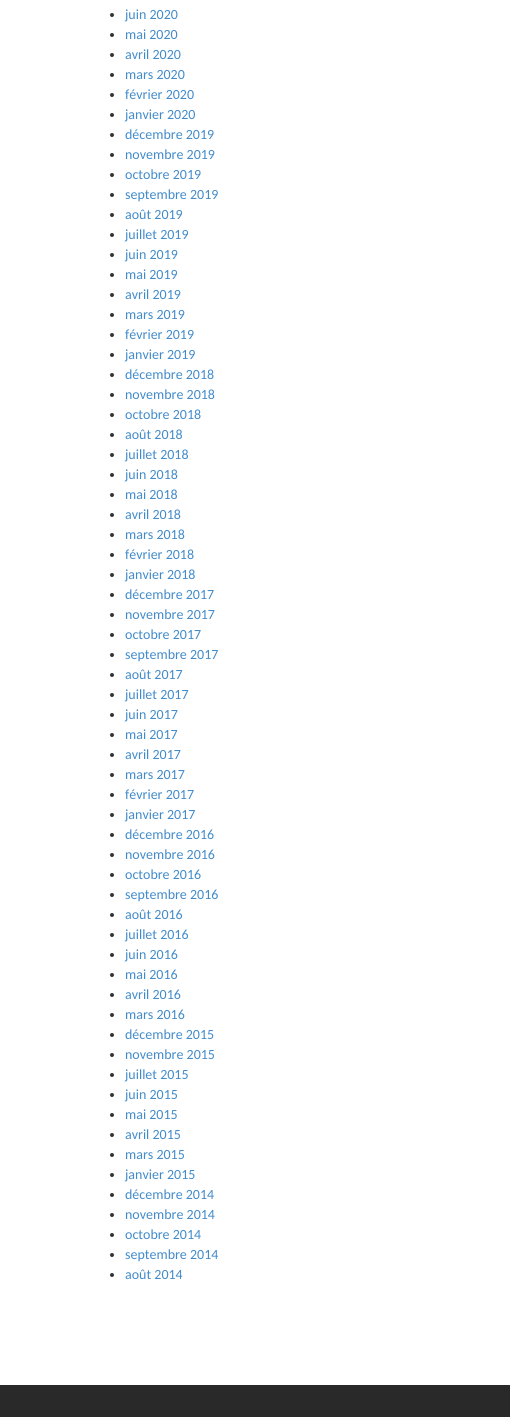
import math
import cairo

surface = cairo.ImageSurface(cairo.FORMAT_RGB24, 510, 1417)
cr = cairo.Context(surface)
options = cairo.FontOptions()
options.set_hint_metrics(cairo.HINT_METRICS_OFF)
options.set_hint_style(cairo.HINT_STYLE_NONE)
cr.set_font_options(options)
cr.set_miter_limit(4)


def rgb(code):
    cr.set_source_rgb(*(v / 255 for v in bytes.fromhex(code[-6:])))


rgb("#ffffff")
cr.paint()
rgb("#333333")
cr.arc(112, 15, 2, 0, 2 * math.pi)
cr.fill()
cr.arc(112, 35, 2, 0, 2 * math.pi)
cr.fill()
cr.arc(112, 55, 2, 0, 2 * math.pi)
cr.fill()
cr.arc(112, 75, 2, 0, 2 * math.pi)
cr.fill()
cr.arc(112, 95, 2, 0, 2 * math.pi)
cr.fill()
cr.arc(112, 115, 2, 0, 2 * math.pi)
cr.fill()
cr.arc(112, 135, 2, 0, 2 * math.pi)
cr.fill()
cr.arc(112, 155, 2, 0, 2 * math.pi)
cr.fill()
cr.arc(112, 175, 2, 0, 2 * math.pi)
cr.fill()
cr.arc(112, 195, 2, 0, 2 * math.pi)
cr.fill()
cr.arc(112, 215, 2, 0, 2 * math.pi)
cr.fill()
cr.arc(112, 235, 2, 0, 2 * math.pi)
cr.fill()
cr.arc(112, 255, 2, 0, 2 * math.pi)
cr.fill()
cr.arc(112, 275, 2, 0, 2 * math.pi)
cr.fill()
cr.arc(112, 295, 2, 0, 2 * math.pi)
cr.fill()
cr.arc(112, 315, 2, 0, 2 * math.pi)
cr.fill()
cr.arc(112, 335, 2, 0, 2 * math.pi)
cr.fill()
cr.arc(112, 355, 2, 0, 2 * math.pi)
cr.fill()
cr.arc(112, 375, 2, 0, 2 * math.pi)
cr.fill()
cr.arc(112, 395, 2, 0, 2 * math.pi)
cr.fill()
cr.arc(112, 415, 2, 0, 2 * math.pi)
cr.fill()
cr.arc(112, 435, 2, 0, 2 * math.pi)
cr.fill()
cr.arc(112, 455, 2, 0, 2 * math.pi)
cr.fill()
cr.arc(112, 475, 2, 0, 2 * math.pi)
cr.fill()
cr.arc(112, 495, 2, 0, 2 * math.pi)
cr.fill()
cr.arc(112, 515, 2, 0, 2 * math.pi)
cr.fill()
cr.arc(112, 535, 2, 0, 2 * math.pi)
cr.fill()
cr.arc(112, 555, 2, 0, 2 * math.pi)
cr.fill()
cr.arc(112, 575, 2, 0, 2 * math.pi)
cr.fill()
cr.arc(112, 595, 2, 0, 2 * math.pi)
cr.fill()
cr.arc(112, 615, 2, 0, 2 * math.pi)
cr.fill()
cr.arc(112, 635, 2, 0, 2 * math.pi)
cr.fill()
cr.arc(112, 655, 2, 0, 2 * math.pi)
cr.fill()
cr.arc(112, 675, 2, 0, 2 * math.pi)
cr.fill()
cr.arc(112, 695, 2, 0, 2 * math.pi)
cr.fill()
cr.arc(112, 715, 2, 0, 2 * math.pi)
cr.fill()
cr.arc(112, 735, 2, 0, 2 * math.pi)
cr.fill()
cr.arc(112, 755, 2, 0, 2 * math.pi)
cr.fill()
cr.arc(112, 775, 2, 0, 2 * math.pi)
cr.fill()
cr.arc(112, 795, 2, 0, 2 * math.pi)
cr.fill()
cr.arc(112, 815, 2, 0, 2 * math.pi)
cr.fill()
cr.arc(112, 835, 2, 0, 2 * math.pi)
cr.fill()
cr.arc(112, 855, 2, 0, 2 * math.pi)
cr.fill()
cr.arc(112, 875, 2, 0, 2 * math.pi)
cr.fill()
cr.arc(112, 895, 2, 0, 2 * math.pi)
cr.fill()
cr.arc(112, 915, 2, 0, 2 * math.pi)
cr.fill()
cr.arc(112, 935, 2, 0, 2 * math.pi)
cr.fill()
cr.arc(112, 955, 2, 0, 2 * math.pi)
cr.fill()
cr.arc(112, 975, 2, 0, 2 * math.pi)
cr.fill()
cr.arc(112, 995, 2, 0, 2 * math.pi)
cr.fill()
cr.arc(112, 1015, 2, 0, 2 * math.pi)
cr.fill()
cr.arc(112, 1035, 2, 0, 2 * math.pi)
cr.fill()
cr.arc(112, 1055, 2, 0, 2 * math.pi)
cr.fill()
cr.arc(112, 1075, 2, 0, 2 * math.pi)
cr.fill()
cr.arc(112, 1095, 2, 0, 2 * math.pi)
cr.fill()
cr.arc(112, 1115, 2, 0, 2 * math.pi)
cr.fill()
cr.arc(112, 1135, 2, 0, 2 * math.pi)
cr.fill()
cr.arc(112, 1155, 2, 0, 2 * math.pi)
cr.fill()
cr.arc(112, 1175, 2, 0, 2 * math.pi)
cr.fill()
cr.arc(112, 1195, 2, 0, 2 * math.pi)
cr.fill()
cr.arc(112, 1215, 2, 0, 2 * math.pi)
cr.fill()
cr.arc(112, 1235, 2, 0, 2 * math.pi)
cr.fill()
cr.arc(112, 1255, 2, 0, 2 * math.pi)
cr.fill()
cr.arc(112, 1275, 2, 0, 2 * math.pi)
cr.fill()
rgb("#292929")
cr.rectangle(0, 1385, 510, 32)
cr.fill()
cr.select_font_face("Carlito")
cr.set_font_size(14)
rgb("#428bca")
for x, y, s in [
    (125, 19, "juin 2020"),
    (125, 39, "mai 2020"),
    (125, 59, "avril 2020"),
    (125, 79, "mars 2020"),
    (125, 99, "février 2020"),
    (125, 119, "janvier 2020"),
    (125, 139, "décembre 2019"),
    (125, 159, "novembre 2019"),
    (125, 179, "octobre 2019"),
    (125, 199, "septembre 2019"),
    (125, 219, "août 2019"),
    (125, 239, "juillet 2019"),
    (125, 259, "juin 2019"),
    (125, 279, "mai 2019"),
    (125, 299, "avril 2019"),
    (125, 319, "mars 2019"),
    (125, 339, "février 2019"),
    (125, 359, "janvier 2019"),
    (125, 379, "décembre 2018"),
    (125, 399, "novembre 2018"),
    (125, 419, "octobre 2018"),
    (125, 439, "août 2018"),
    (125, 459, "juillet 2018"),
    (125, 479, "juin 2018"),
    (125, 499, "mai 2018"),
    (125, 519, "avril 2018"),
    (125, 539, "mars 2018"),
    (125, 559, "février 2018"),
    (125, 579, "janvier 2018"),
    (125, 599, "décembre 2017"),
    (125, 619, "novembre 2017"),
    (125, 639, "octobre 2017"),
    (125, 659, "septembre 2017"),
    (125, 679, "août 2017"),
    (125, 699, "juillet 2017"),
    (125, 719, "juin 2017"),
    (125, 739, "mai 2017"),
    (125, 759, "avril 2017"),
    (125, 779, "mars 2017"),
    (125, 799, "février 2017"),
    (125, 819, "janvier 2017"),
    (125, 839, "décembre 2016"),
    (125, 859, "novembre 2016"),
    (125, 879, "octobre 2016"),
    (125, 899, "septembre 2016"),
    (125, 919, "août 2016"),
    (125, 939, "juillet 2016"),
    (125, 959, "juin 2016"),
    (125, 979, "mai 2016"),
    (125, 999, "avril 2016"),
    (125, 1019, "mars 2016"),
    (125, 1039, "décembre 2015"),
    (125, 1059, "novembre 2015"),
    (125, 1079, "juillet 2015"),
    (125, 1099, "juin 2015"),
    (125, 1119, "mai 2015"),
    (125, 1139, "avril 2015"),
    (125, 1159, "mars 2015"),
    (125, 1179, "janvier 2015"),
    (125, 1199, "décembre 2014"),
    (125, 1219, "novembre 2014"),
    (125, 1239, "octobre 2014"),
    (125, 1259, "septembre 2014"),
    (125, 1279, "août 2014"),
]:
    cr.move_to(x, y)
    cr.show_text(s)
surface.write_to_png("page.png")
